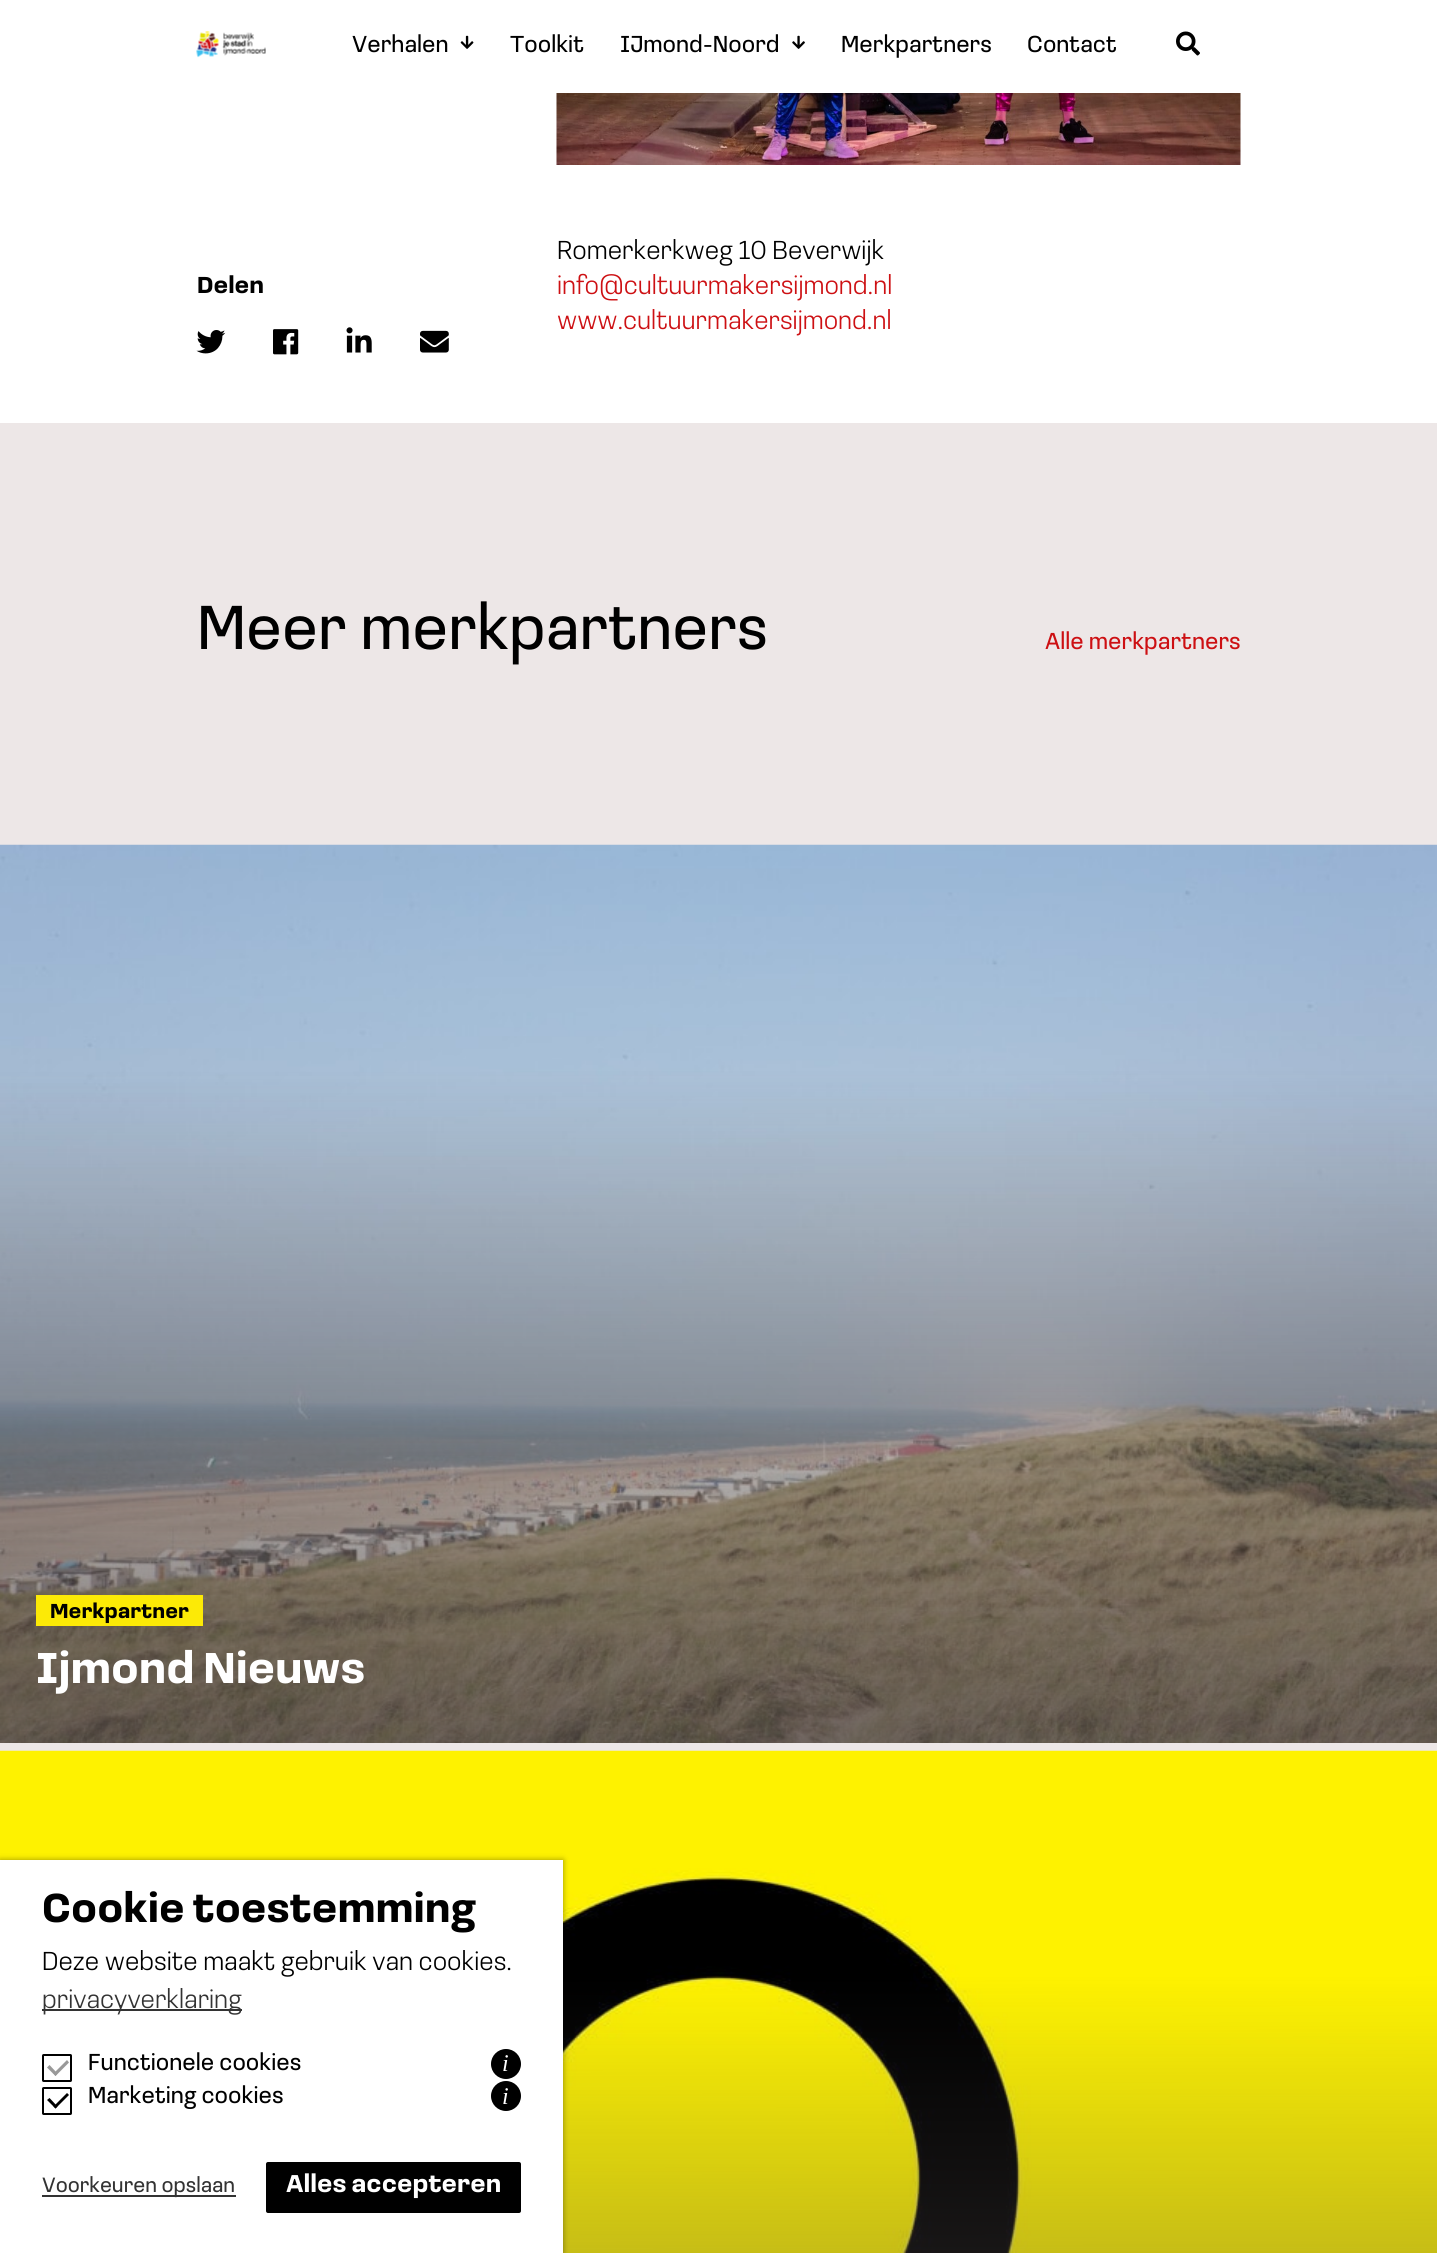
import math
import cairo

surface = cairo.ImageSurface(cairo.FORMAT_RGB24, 1437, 2253)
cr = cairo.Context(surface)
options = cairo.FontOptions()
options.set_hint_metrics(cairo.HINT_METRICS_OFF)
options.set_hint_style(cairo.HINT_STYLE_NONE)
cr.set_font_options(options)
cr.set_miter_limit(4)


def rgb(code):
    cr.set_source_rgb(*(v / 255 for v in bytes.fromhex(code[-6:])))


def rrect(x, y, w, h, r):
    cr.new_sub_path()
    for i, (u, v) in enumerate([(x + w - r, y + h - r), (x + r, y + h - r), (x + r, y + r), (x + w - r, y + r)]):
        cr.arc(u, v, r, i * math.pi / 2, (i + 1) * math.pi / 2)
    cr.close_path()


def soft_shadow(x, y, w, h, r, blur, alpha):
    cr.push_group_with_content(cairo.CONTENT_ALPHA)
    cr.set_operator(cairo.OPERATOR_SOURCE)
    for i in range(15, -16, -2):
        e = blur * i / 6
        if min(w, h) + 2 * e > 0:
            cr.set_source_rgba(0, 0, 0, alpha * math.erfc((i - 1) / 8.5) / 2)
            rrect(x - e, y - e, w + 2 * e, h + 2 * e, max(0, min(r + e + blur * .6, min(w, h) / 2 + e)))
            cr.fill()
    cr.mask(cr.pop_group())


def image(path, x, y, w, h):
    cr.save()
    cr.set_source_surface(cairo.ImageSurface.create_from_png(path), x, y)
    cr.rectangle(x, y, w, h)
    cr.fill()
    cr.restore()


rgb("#ffffff")
cr.paint()
image("img/1.png", 196, 31, 70, 27)
image("img/2.png", 460, 35, 14, 14)
image("img/3.png", 792, 35, 13, 14)
image("img/4.png", 1176, 31, 24, 25)
image("img/5.png", 196, 330, 30, 24)
image("img/6.png", 273, 329, 26, 26)
image("img/7.png", 346, 327, 26, 26)
image("img/8.png", 420, 330, 29, 23)
image("img/9.png", 556, 93, 685, 72)
rgb("#ede7e7")
cr.rectangle(0, 423, 1437, 1328)
cr.fill()
image("img/10.png", 0, 844, 1437, 899)
rgb("#fcea06")
cr.rectangle(36, 1595, 167, 31)
cr.fill()
image("img/11.png", 0, 1750, 1437, 503)
rgb("#000000")
soft_shadow(0, 1860, 563, 393, 0, 3, 0.4)
rgb("#ffffff")
cr.rectangle(0, 1860, 563, 393)
cr.fill()
rgb("#333333")
cr.rectangle(42, 2009, 200, 2)
cr.fill()
rrect(43, 2055, 28, 26, 0.5)
rgb("#000000")
cr.stroke()
rgb("#999999")
cr.new_path()
cr.move_to(53.5, 2073.5)
cr.line_to(67, 2060)
cr.line_to(69, 2062.5)
cr.line_to(55.5, 2076)
cr.close_path()
cr.fill()
cr.new_path()
cr.move_to(47, 2067.5)
cr.line_to(49.5, 2065)
cr.line_to(57.5, 2073.5)
cr.line_to(55.5, 2076)
cr.close_path()
cr.fill()
rgb("#000000")
cr.arc(506, 2064, 15, 0, 2 * math.pi)
cr.fill()
rrect(43, 2088, 28, 26, 0.5)
cr.stroke()
cr.new_path()
cr.move_to(53.5, 2106.5)
cr.line_to(67, 2093)
cr.line_to(69, 2095)
cr.line_to(55.5, 2108.5)
cr.close_path()
cr.fill()
cr.new_path()
cr.move_to(47, 2100)
cr.line_to(49.5, 2098)
cr.line_to(57.5, 2106.5)
cr.line_to(55.5, 2108.5)
cr.close_path()
cr.fill()
cr.arc(506, 2096, 15, 0, 2 * math.pi)
cr.fill()
rgb("#333333")
cr.rectangle(42, 2195, 194, 2)
cr.fill()
rgb("#000000")
rrect(266, 2162, 255, 51, 2)
cr.fill()
cr.select_font_face("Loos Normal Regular")
cr.set_font_size(24)
for x, y, s in [
    (352, 52, "Verhalen"),
    (510, 52, "Toolkit"),
    (620, 52, "IJmond-Noord"),
    (841, 52, "Merkpartners"),
    (1027, 52, "Contact"),
]:
    cr.move_to(x, y)
    cr.show_text(s)
cr.select_font_face("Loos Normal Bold", cairo.FONT_SLANT_NORMAL, cairo.FONT_WEIGHT_BOLD)
cr.move_to(197, 293)
cr.show_text("Delen")
cr.select_font_face("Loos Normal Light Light")
cr.set_font_size(27)
cr.move_to(557, 259)
cr.show_text("Romerkerkweg 10 Beverwijk")
rgb("#cd1013")
cr.move_to(557, 294)
cr.show_text("info@cultuurmakersijmond.nl")
cr.move_to(557, 329)
cr.show_text("www.cultuurmakersijmond.nl")
cr.select_font_face("Loos Normal Regular")
cr.set_font_size(64.4)
rgb("#000000")
cr.move_to(197, 649)
cr.show_text("Meer merkpartners")
cr.set_font_size(24)
rgb("#cd1013")
cr.move_to(1045, 649)
cr.show_text("Alle merkpartners")
cr.select_font_face("Loos Normal Bold", cairo.FONT_SLANT_NORMAL, cairo.FONT_WEIGHT_BOLD)
cr.set_font_size(21)
rgb("#000000")
cr.move_to(50, 1618)
cr.show_text("Merkpartner")
cr.set_font_size(44.75)
rgb("#ffffff")
cr.move_to(36, 1683)
cr.show_text("Ijmond Nieuws")
cr.set_font_size(42)
rgb("#000000")
cr.move_to(42, 1922)
cr.show_text("Cookie toestemming")
cr.select_font_face("Loos Normal Light Light")
cr.set_font_size(27)
cr.move_to(42, 1970)
cr.show_text("Deze website maakt gebruik van cookies.")
rgb("#333333")
cr.move_to(42, 2008)
cr.show_text("privacyverklaring")
cr.select_font_face("Loos Normal Regular")
cr.set_font_size(24)
rgb("#000000")
cr.move_to(88, 2070)
cr.show_text("Functionele cookies")
cr.select_font_face("Liberation Serif", cairo.FONT_SLANT_ITALIC)
rgb("#ffffff")
cr.move_to(502, 2071)
cr.show_text("i")
cr.select_font_face("Loos Normal Regular")
rgb("#000000")
cr.move_to(88, 2103)
cr.show_text("Marketing cookies")
cr.select_font_face("Liberation Serif", cairo.FONT_SLANT_ITALIC)
rgb("#ffffff")
cr.move_to(502, 2104)
cr.show_text("i")
cr.select_font_face("Loos Normal Regular")
cr.set_font_size(21.5)
rgb("#333333")
cr.move_to(42, 2192)
cr.show_text("Voorkeuren opslaan")
cr.select_font_face("Loos Normal Bold", cairo.FONT_SLANT_NORMAL, cairo.FONT_WEIGHT_BOLD)
cr.set_font_size(25.25)
rgb("#ffffff")
cr.move_to(286, 2192)
cr.show_text("Alles accepteren")
surface.write_to_png("page.png")
